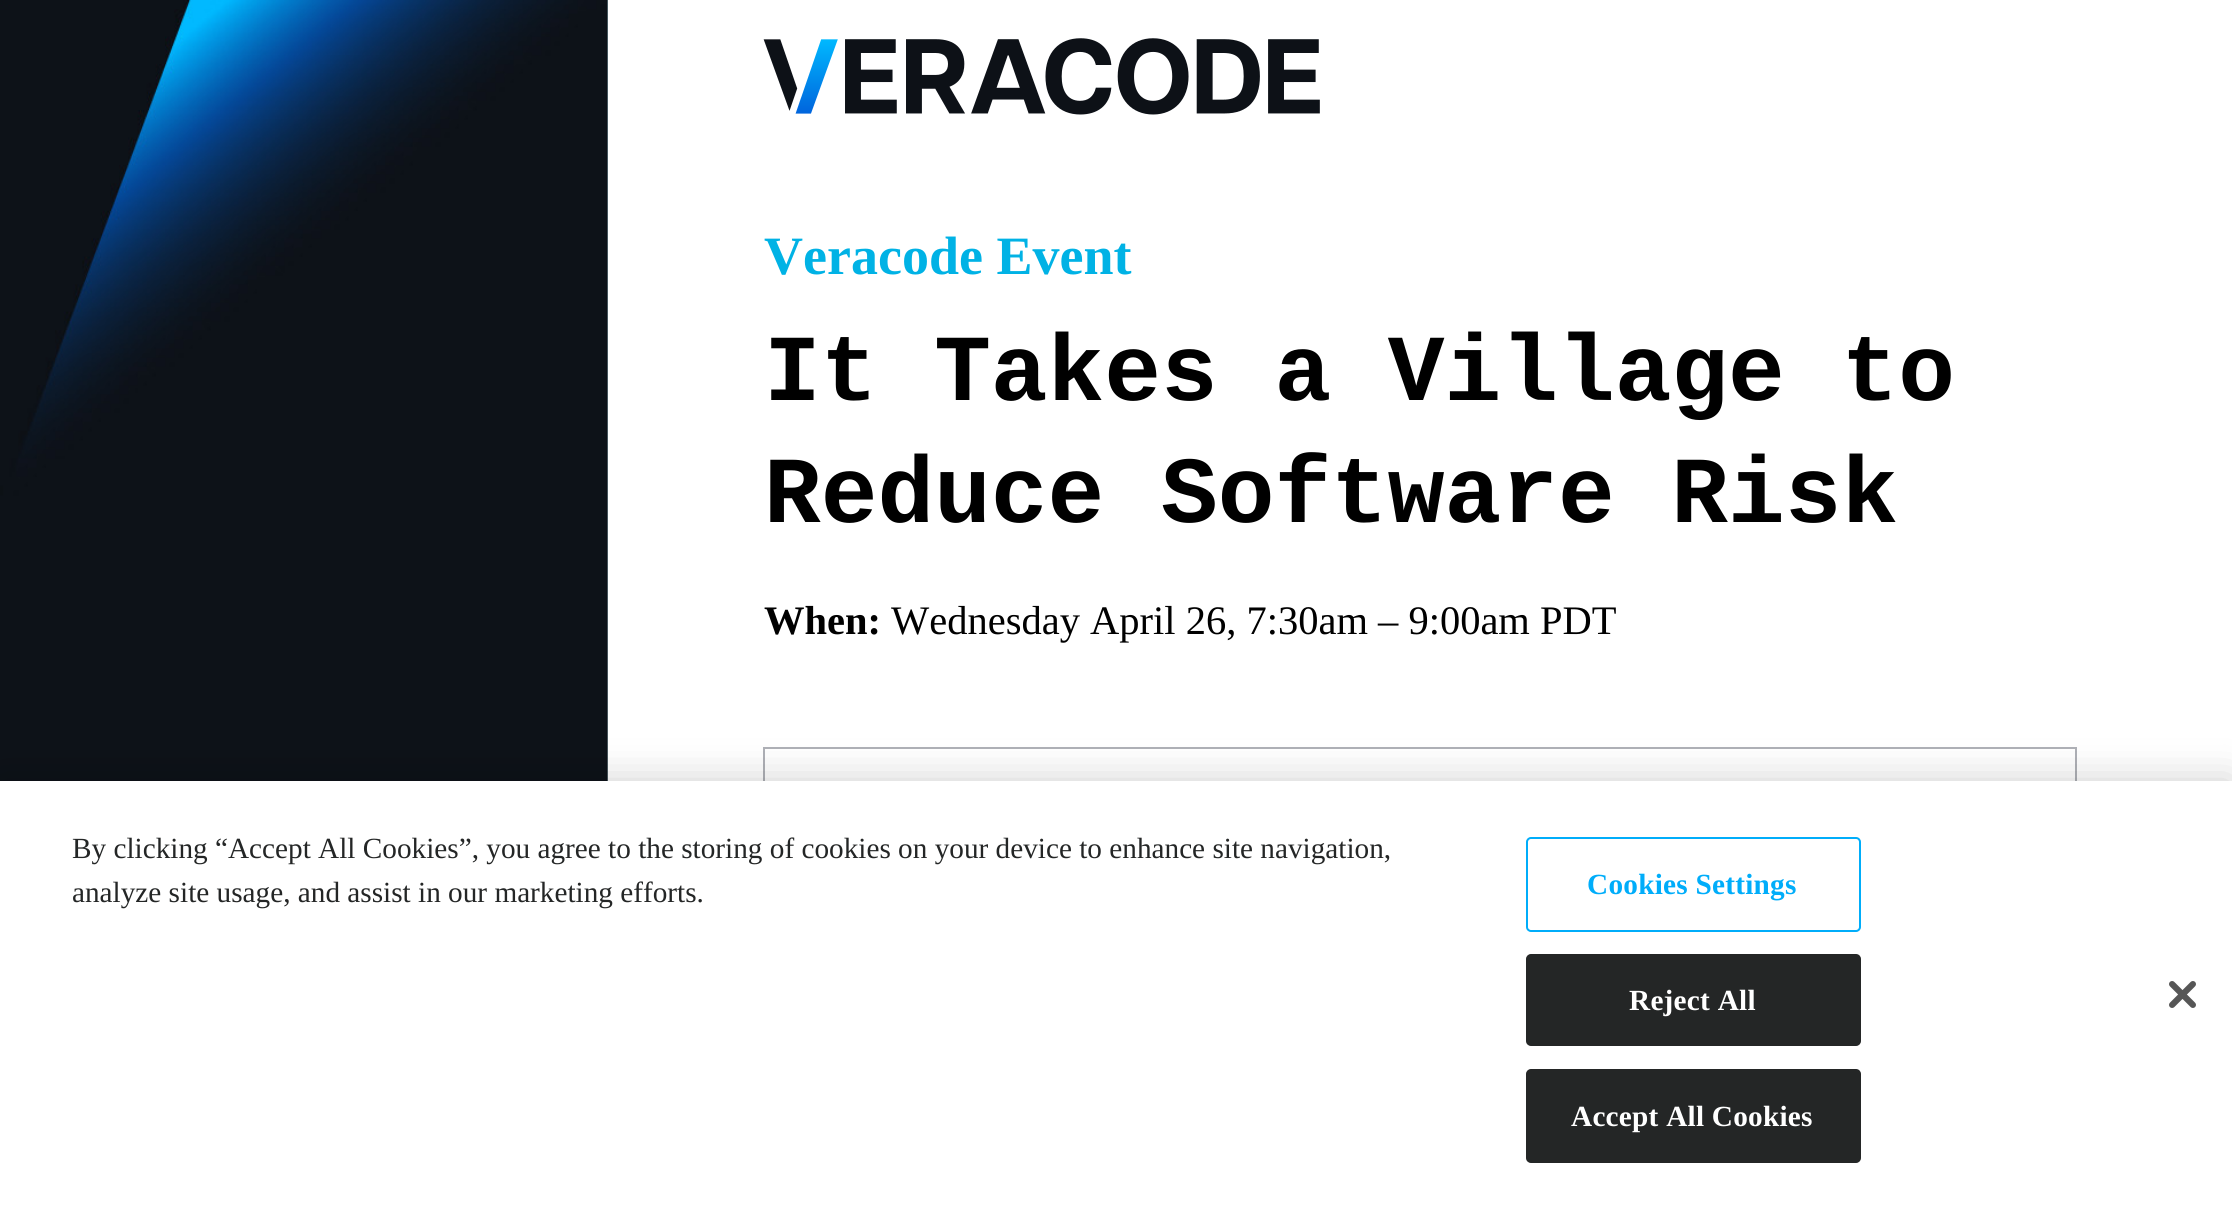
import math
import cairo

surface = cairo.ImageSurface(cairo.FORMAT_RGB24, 2232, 1207)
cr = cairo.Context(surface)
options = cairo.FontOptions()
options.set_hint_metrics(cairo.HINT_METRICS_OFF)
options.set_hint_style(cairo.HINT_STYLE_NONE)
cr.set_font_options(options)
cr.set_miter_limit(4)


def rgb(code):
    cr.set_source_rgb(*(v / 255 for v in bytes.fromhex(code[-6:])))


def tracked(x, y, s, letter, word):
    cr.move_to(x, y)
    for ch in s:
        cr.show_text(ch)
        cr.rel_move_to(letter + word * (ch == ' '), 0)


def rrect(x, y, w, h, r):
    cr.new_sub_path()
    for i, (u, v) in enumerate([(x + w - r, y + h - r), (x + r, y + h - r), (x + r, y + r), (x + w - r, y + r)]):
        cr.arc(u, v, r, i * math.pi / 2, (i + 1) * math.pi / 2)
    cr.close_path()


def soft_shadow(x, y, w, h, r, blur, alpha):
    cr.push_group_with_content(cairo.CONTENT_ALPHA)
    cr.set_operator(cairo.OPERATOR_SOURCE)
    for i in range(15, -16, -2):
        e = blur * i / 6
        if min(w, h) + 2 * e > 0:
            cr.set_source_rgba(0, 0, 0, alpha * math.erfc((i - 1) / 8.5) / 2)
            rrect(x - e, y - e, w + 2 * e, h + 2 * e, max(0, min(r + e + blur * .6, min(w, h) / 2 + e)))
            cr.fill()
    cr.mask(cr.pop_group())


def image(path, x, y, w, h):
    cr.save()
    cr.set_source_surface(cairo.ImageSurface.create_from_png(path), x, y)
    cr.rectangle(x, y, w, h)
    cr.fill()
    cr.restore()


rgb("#ffffff")
cr.paint()
image("img/1.png", 607, 0, 1, 781)
image("img/2.png", 0, 0, 608, 781)
image("img/3.png", 763, 38, 557, 77)
cr.rectangle(764, 748, 1312, 111)
rgb("#aeb0b6")
cr.stroke()
rgb("#000000")
soft_shadow(0, 781, 2232, 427, 0, 20, 0.2)
rgb("#ffffff")
cr.rectangle(0, 781, 2232, 426)
cr.fill()
rrect(1527, 838, 333, 93, 4)
rgb("#00adfa")
cr.stroke()
rgb("#242626")
rrect(1527, 955, 333, 90, 4)
cr.fill_preserve()
cr.stroke()
rrect(1527, 1070, 333, 92, 4)
cr.fill_preserve()
cr.stroke()
image("img/4.png", 2169, 981, 27, 27)
cr.select_font_face("Liberation Serif", cairo.FONT_SLANT_NORMAL, cairo.FONT_WEIGHT_BOLD)
cr.set_font_size(54)
rgb("#00b2e5")
cr.move_to(764, 274)
cr.show_text("Veracode Event")
cr.select_font_face("Liberation Mono", cairo.FONT_SLANT_NORMAL, cairo.FONT_WEIGHT_BOLD)
cr.set_font_size(94.5)
rgb("#000000")
cr.move_to(764, 400)
cr.show_text("It Takes a Village to")
cr.move_to(764, 522)
cr.show_text("Reduce Software Risk")
cr.select_font_face("Liberation Serif", cairo.FONT_SLANT_NORMAL, cairo.FONT_WEIGHT_BOLD)
cr.set_font_size(40.5)
cr.move_to(764, 634)
cr.show_text("When:")
cr.select_font_face("Liberation Serif")
cr.move_to(891, 634)
cr.show_text("Wednesday April 26, 7:30am – 9:00am PDT")
cr.set_font_size(29.25)
rgb("#242626")
cr.move_to(72, 858)
cr.show_text("By clicking “Accept All Cookies”, you agree to the storing of cookies on your device to enhance site navigation,")
cr.move_to(72, 902)
cr.show_text("analyze site usage, and assist in our marketing efforts.")
cr.select_font_face("Liberation Serif", cairo.FONT_SLANT_NORMAL, cairo.FONT_WEIGHT_BOLD)
rgb("#00adfa")
tracked(1587, 894, "Cookies Settings", 0.25, 0)
rgb("#ffffff")
tracked(1629, 1010, "Reject All", 0.25, 0)
tracked(1571, 1126, "Accept All Cookies", 0.25, 0)
surface.write_to_png("page.png")
